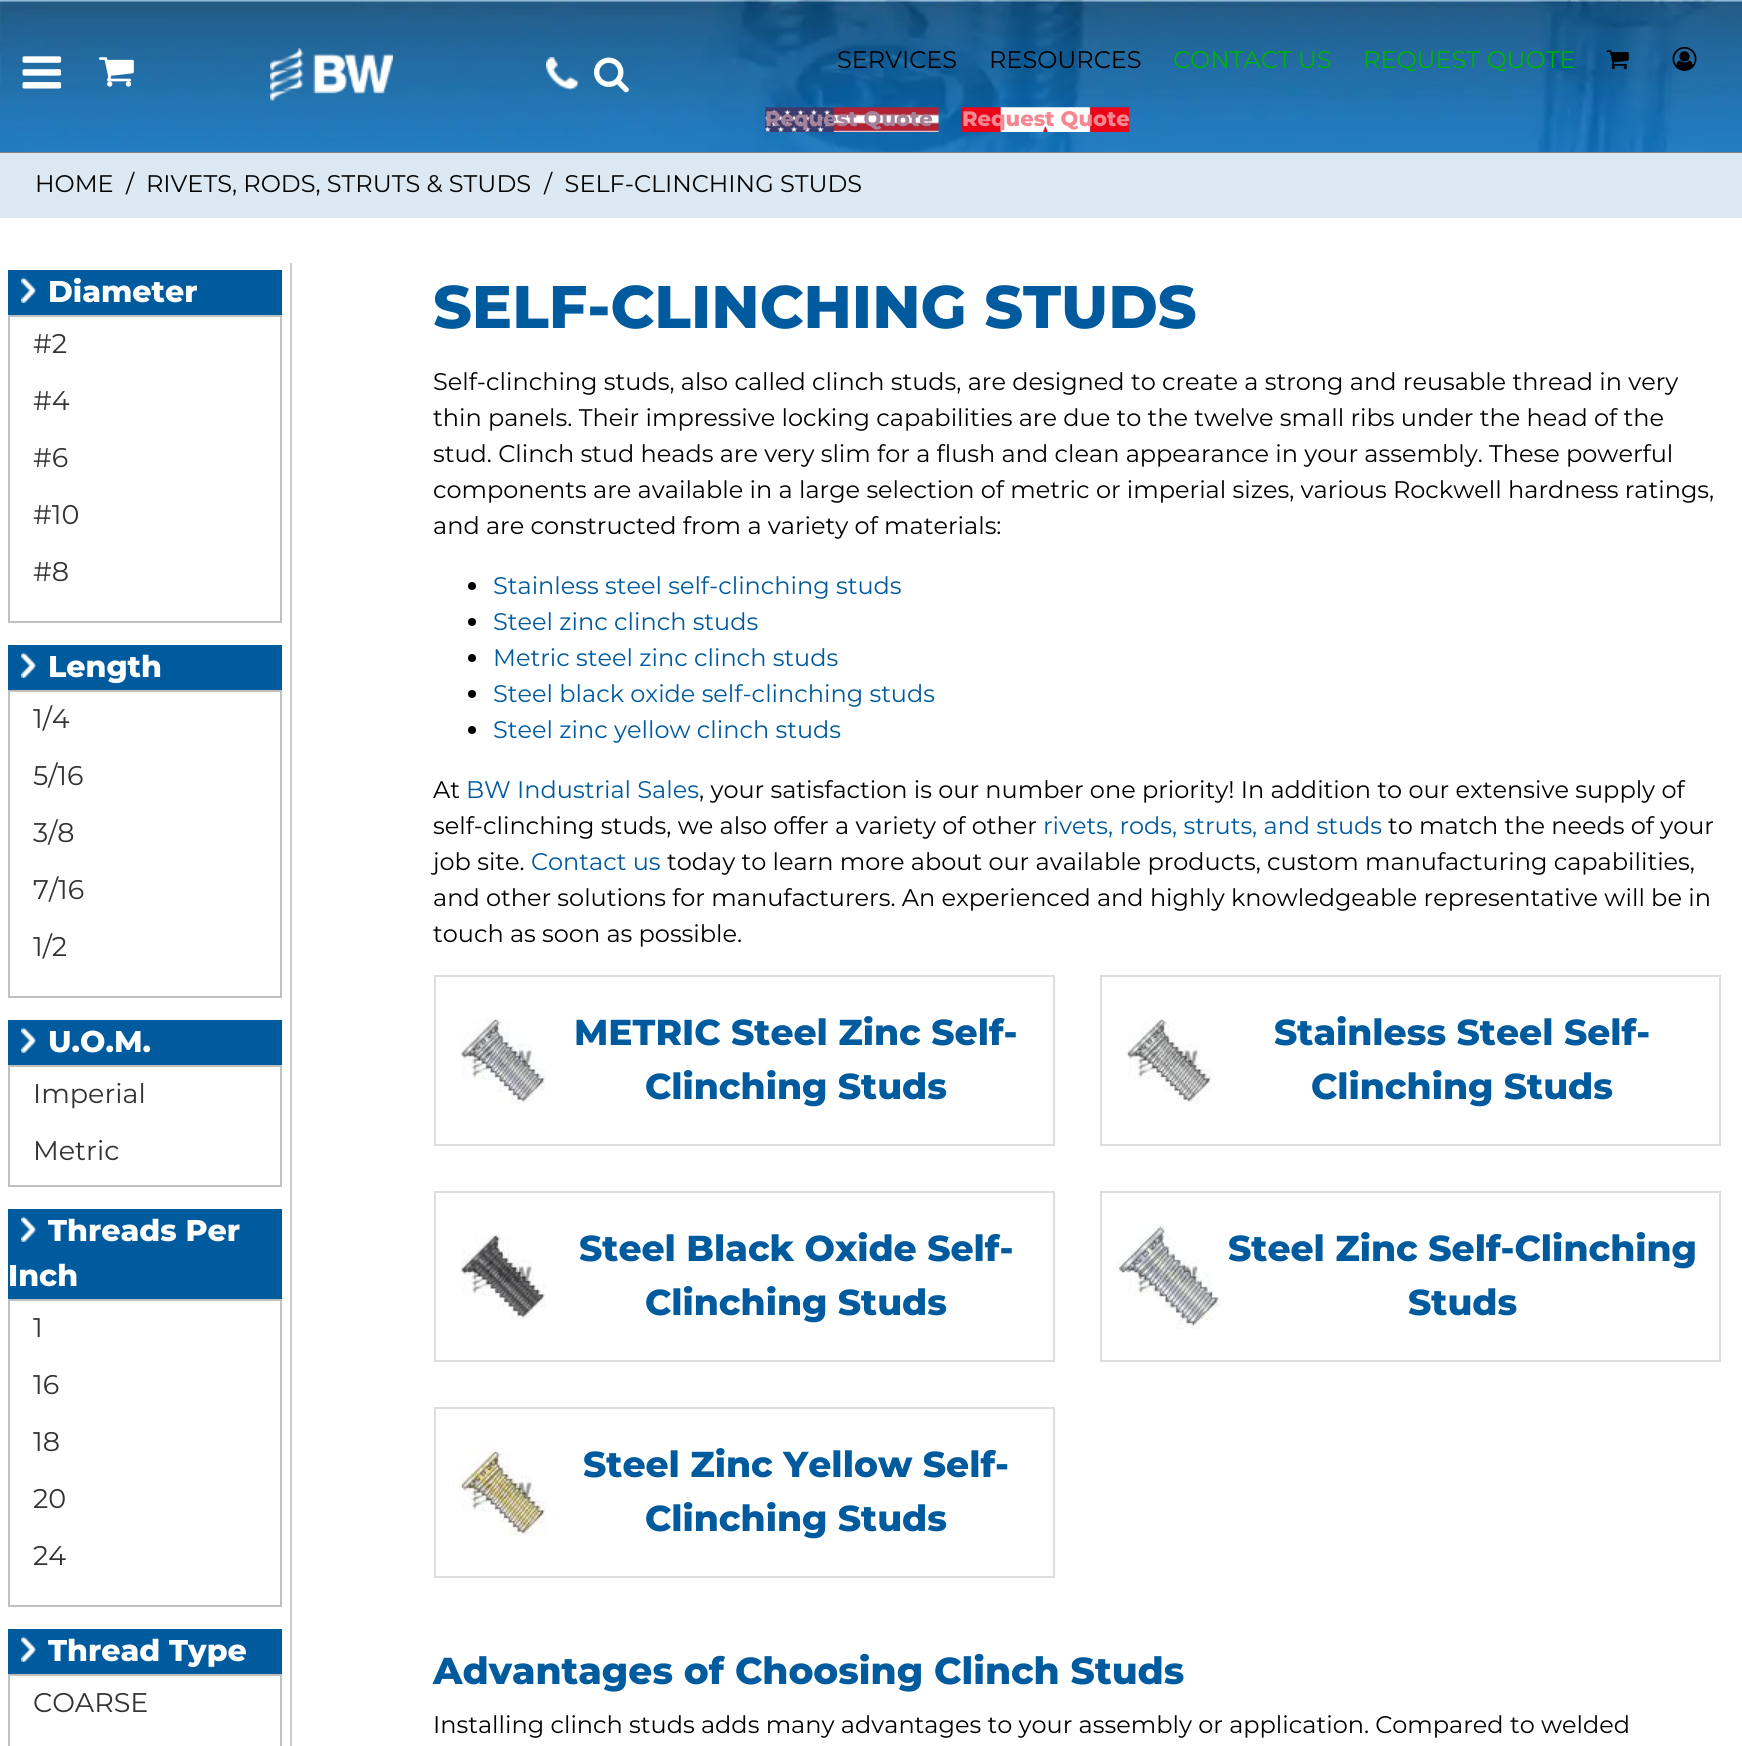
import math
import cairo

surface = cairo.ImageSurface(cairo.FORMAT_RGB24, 1742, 1746)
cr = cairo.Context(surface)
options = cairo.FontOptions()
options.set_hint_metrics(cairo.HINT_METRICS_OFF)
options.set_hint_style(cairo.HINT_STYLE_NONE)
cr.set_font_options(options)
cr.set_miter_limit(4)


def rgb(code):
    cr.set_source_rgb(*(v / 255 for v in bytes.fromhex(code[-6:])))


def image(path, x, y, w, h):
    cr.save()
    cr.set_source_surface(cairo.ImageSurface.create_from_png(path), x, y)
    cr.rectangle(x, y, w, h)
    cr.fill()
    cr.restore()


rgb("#ffffff")
cr.paint()
image("img/1.png", 0, 0, 1742, 152)
rgb("#808080")
cr.rectangle(0, 152, 1742, 1)
cr.fill()
image("img/2.png", 22, 56, 40, 33)
image("img/3.png", 99, 57, 35, 30)
image("img/4.png", 270, 48, 123, 53)
image("img/5.png", 546, 57, 33, 33)
image("img/6.png", 594, 57, 35, 36)
image("img/7.png", 1606, 50, 23, 20)
image("img/8.png", 1672, 46, 25, 25)
image("img/9.png", 765, 107, 174, 25)
image("img/10.png", 961, 107, 169, 25)
for x, y, w, h, color in [
    (0, 153, 1742, 65, "#dde9f2"),
    (290, 263, 2, 1483, "#cccccc"),
    (8, 270, 274, 45, "#005a9e"),
]:
    rgb(color)
    cr.rectangle(x, y, w, h)
    cr.fill()
image("img/11.png", 21, 277, 15, 26)
cr.rectangle(9, 316, 272, 306)
rgb("#c0c0c0")
cr.stroke()
rgb("#005a9e")
cr.rectangle(8, 645, 274, 45)
cr.fill()
image("img/11.png", 21, 652, 15, 26)
cr.rectangle(9, 691, 272, 306)
rgb("#c0c0c0")
cr.stroke()
rgb("#005a9e")
cr.rectangle(8, 1020, 274, 45)
cr.fill()
image("img/11.png", 21, 1027, 15, 26)
cr.rectangle(9, 1066, 272, 120)
rgb("#c0c0c0")
cr.stroke()
rgb("#005a9e")
cr.rectangle(8, 1209, 274, 90)
cr.fill()
image("img/11.png", 21, 1216, 15, 26)
cr.rectangle(9, 1300, 272, 306)
rgb("#c0c0c0")
cr.stroke()
rgb("#005a9e")
cr.rectangle(8, 1629, 274, 45)
cr.fill()
image("img/11.png", 21, 1636, 15, 26)
cr.rectangle(9, 1675, 272, 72)
rgb("#c0c0c0")
cr.stroke()
rgb("#000000")
cr.arc(472, 586, 4, 0, 2 * math.pi)
cr.fill()
cr.arc(472, 622, 4, 0, 2 * math.pi)
cr.fill()
cr.arc(472, 658, 4, 0, 2 * math.pi)
cr.fill()
cr.arc(472, 694, 4, 0, 2 * math.pi)
cr.fill()
cr.arc(472, 730, 4, 0, 2 * math.pi)
cr.fill()
cr.rectangle(435, 976, 619, 169)
rgb("#dddddd")
cr.stroke()
image("img/12.png", 459, 1019, 87, 85)
cr.rectangle(1101, 976, 619, 169)
cr.stroke()
image("img/13.png", 1125, 1019, 87, 85)
cr.rectangle(435, 1192, 619, 169)
cr.stroke()
image("img/14.png", 459, 1234, 87, 86)
cr.rectangle(1101, 1192, 619, 169)
cr.stroke()
image("img/15.png", 1116, 1224, 105, 105)
cr.rectangle(435, 1408, 619, 169)
cr.stroke()
image("img/16.png", 452, 1440, 95, 97)
cr.select_font_face("Montserrat")
cr.set_font_size(24)
rgb("#000000")
cr.move_to(837, 68)
cr.show_text("SERVICES")
cr.move_to(989, 68)
cr.show_text("RESOURCES")
rgb("#00b201")
cr.move_to(1173, 68)
cr.show_text("CONTACT US")
cr.move_to(1363, 68)
cr.show_text("REQUEST QUOTE")
cr.select_font_face("Montserrat ExtraBold")
cr.set_font_size(21)
rgb("#a5849b")
cr.move_to(765, 126)
cr.show_text("Request Quote")
rgb("#f48790")
cr.move_to(962, 126)
cr.show_text("Request Quote")
cr.select_font_face("Montserrat")
cr.set_font_size(24)
rgb("#000000")
for x, y, s in [
    (35, 192, "HOME"),
    (126, 192, "/"),
    (146, 192, "RIVETS, RODS, STRUTS & STUDS"),
    (544, 192, "/  SELF-CLINCHING STUDS"),
]:
    cr.move_to(x, y)
    cr.show_text(s)
cr.select_font_face("Montserrat ExtraBold")
cr.set_font_size(30)
rgb("#ffffff")
cr.move_to(48, 302)
cr.show_text("Diameter")
cr.select_font_face("Montserrat")
cr.set_font_size(27)
rgb("#333333")
for x, y, s in [
    (33, 353, "#2"),
    (33, 410, "#4"),
    (33, 467, "#6"),
    (33, 524, "#10"),
    (33, 581, "#8"),
]:
    cr.move_to(x, y)
    cr.show_text(s)
cr.select_font_face("Montserrat ExtraBold")
cr.set_font_size(30)
rgb("#ffffff")
cr.move_to(48, 677)
cr.show_text("Length")
cr.select_font_face("Montserrat")
cr.set_font_size(27)
rgb("#333333")
for x, y, s in [
    (33, 728, "1/4"),
    (33, 785, "5/16"),
    (33, 842, "3/8"),
    (33, 899, "7/16"),
    (33, 956, "1/2"),
]:
    cr.move_to(x, y)
    cr.show_text(s)
cr.select_font_face("Montserrat ExtraBold")
cr.set_font_size(30)
rgb("#ffffff")
cr.move_to(48, 1052)
cr.show_text("U.O.M.")
cr.select_font_face("Montserrat")
cr.set_font_size(27)
rgb("#333333")
cr.move_to(33, 1103)
cr.show_text("Imperial")
cr.move_to(33, 1160)
cr.show_text("Metric")
cr.select_font_face("Montserrat ExtraBold")
cr.set_font_size(30)
rgb("#ffffff")
cr.move_to(48, 1241)
cr.show_text("Threads Per")
cr.move_to(8, 1286)
cr.show_text("Inch")
cr.select_font_face("Montserrat")
cr.set_font_size(27)
rgb("#333333")
for x, y, s in [
    (33, 1337, "1"),
    (33, 1394, "16"),
    (33, 1451, "18"),
    (33, 1508, "20"),
    (33, 1565, "24"),
]:
    cr.move_to(x, y)
    cr.show_text(s)
cr.select_font_face("Montserrat ExtraBold")
cr.set_font_size(30)
rgb("#ffffff")
cr.move_to(48, 1661)
cr.show_text("Thread Type")
cr.select_font_face("Montserrat")
cr.set_font_size(27)
rgb("#333333")
cr.move_to(33, 1712)
cr.show_text("COARSE")
cr.select_font_face("Montserrat ExtraBold")
cr.set_font_size(60)
rgb("#005a9e")
cr.move_to(433, 328)
cr.show_text("SELF-CLINCHING STUDS")
cr.select_font_face("Montserrat")
cr.set_font_size(24)
rgb("#000000")
for x, y, s in [
    (433, 390, "Self-clinching studs, also called clinch studs, are designed to create a strong and reusable thread in very"),
    (433, 426, "thin panels. Their impressive locking capabilities are due to the twelve small ribs under the head of the"),
    (433, 462, "stud. Clinch stud heads are very slim for a flush and clean appearance in your assembly. These powerful"),
    (433, 498, "components are available in a large selection of metric or imperial sizes, various Rockwell hardness ratings,"),
    (433, 534, "and are constructed from a variety of materials:"),
]:
    cr.move_to(x, y)
    cr.show_text(s)
rgb("#005a9e")
for x, y, s in [
    (493, 594, "Stainless steel self-clinching studs"),
    (493, 630, "Steel zinc clinch studs"),
    (493, 666, "Metric steel zinc clinch studs"),
    (493, 702, "Steel black oxide self-clinching studs"),
    (493, 738, "Steel zinc yellow clinch studs"),
]:
    cr.move_to(x, y)
    cr.show_text(s)
rgb("#000000")
cr.move_to(433, 798)
cr.show_text("At")
rgb("#005a9e")
cr.move_to(466, 798)
cr.show_text("BW Industrial Sales")
rgb("#000000")
cr.move_to(699, 798)
cr.show_text(", your satisfaction is our number one priority! In addition to our extensive supply of")
cr.move_to(433, 834)
cr.show_text("self-clinching studs, we also offer a variety of other")
rgb("#005a9e")
cr.move_to(1043, 834)
cr.show_text("rivets, rods, struts, and studs")
rgb("#000000")
cr.move_to(1388, 834)
cr.show_text("to match the needs of your")
cr.move_to(433, 870)
cr.show_text("job site.")
rgb("#005a9e")
cr.move_to(531, 870)
cr.show_text("Contact us")
rgb("#000000")
for x, y, s in [
    (667, 870, "today to learn more about our available products, custom manufacturing capabilities,"),
    (433, 906, "and other solutions for manufacturers. An experienced and highly knowledgeable representative will be in"),
    (433, 942, "touch as soon as possible."),
]:
    cr.move_to(x, y)
    cr.show_text(s)
cr.select_font_face("Montserrat ExtraBold")
cr.set_font_size(36)
rgb("#005a9e")
for x, y, s in [
    (574, 1045, "METRIC Steel Zinc Self-"),
    (645, 1099, "Clinching Studs"),
    (1274, 1045, "Stainless Steel Self-"),
    (1311, 1099, "Clinching Studs"),
    (579, 1261, "Steel Black Oxide Self-"),
    (645, 1315, "Clinching Studs"),
    (1228, 1261, "Steel Zinc Self-Clinching"),
    (1408, 1315, "Studs"),
    (583, 1477, "Steel Zinc Yellow Self-"),
    (645, 1531, "Clinching Studs"),
]:
    cr.move_to(x, y)
    cr.show_text(s)
cr.set_font_size(37.5)
cr.move_to(433, 1684)
cr.show_text("Advantages of Choosing Clinch Studs")
cr.select_font_face("Montserrat")
cr.set_font_size(24)
rgb("#000000")
cr.move_to(433, 1733)
cr.show_text("Installing clinch studs adds many advantages to your assembly or application. Compared to welded")
surface.write_to_png("page.png")
